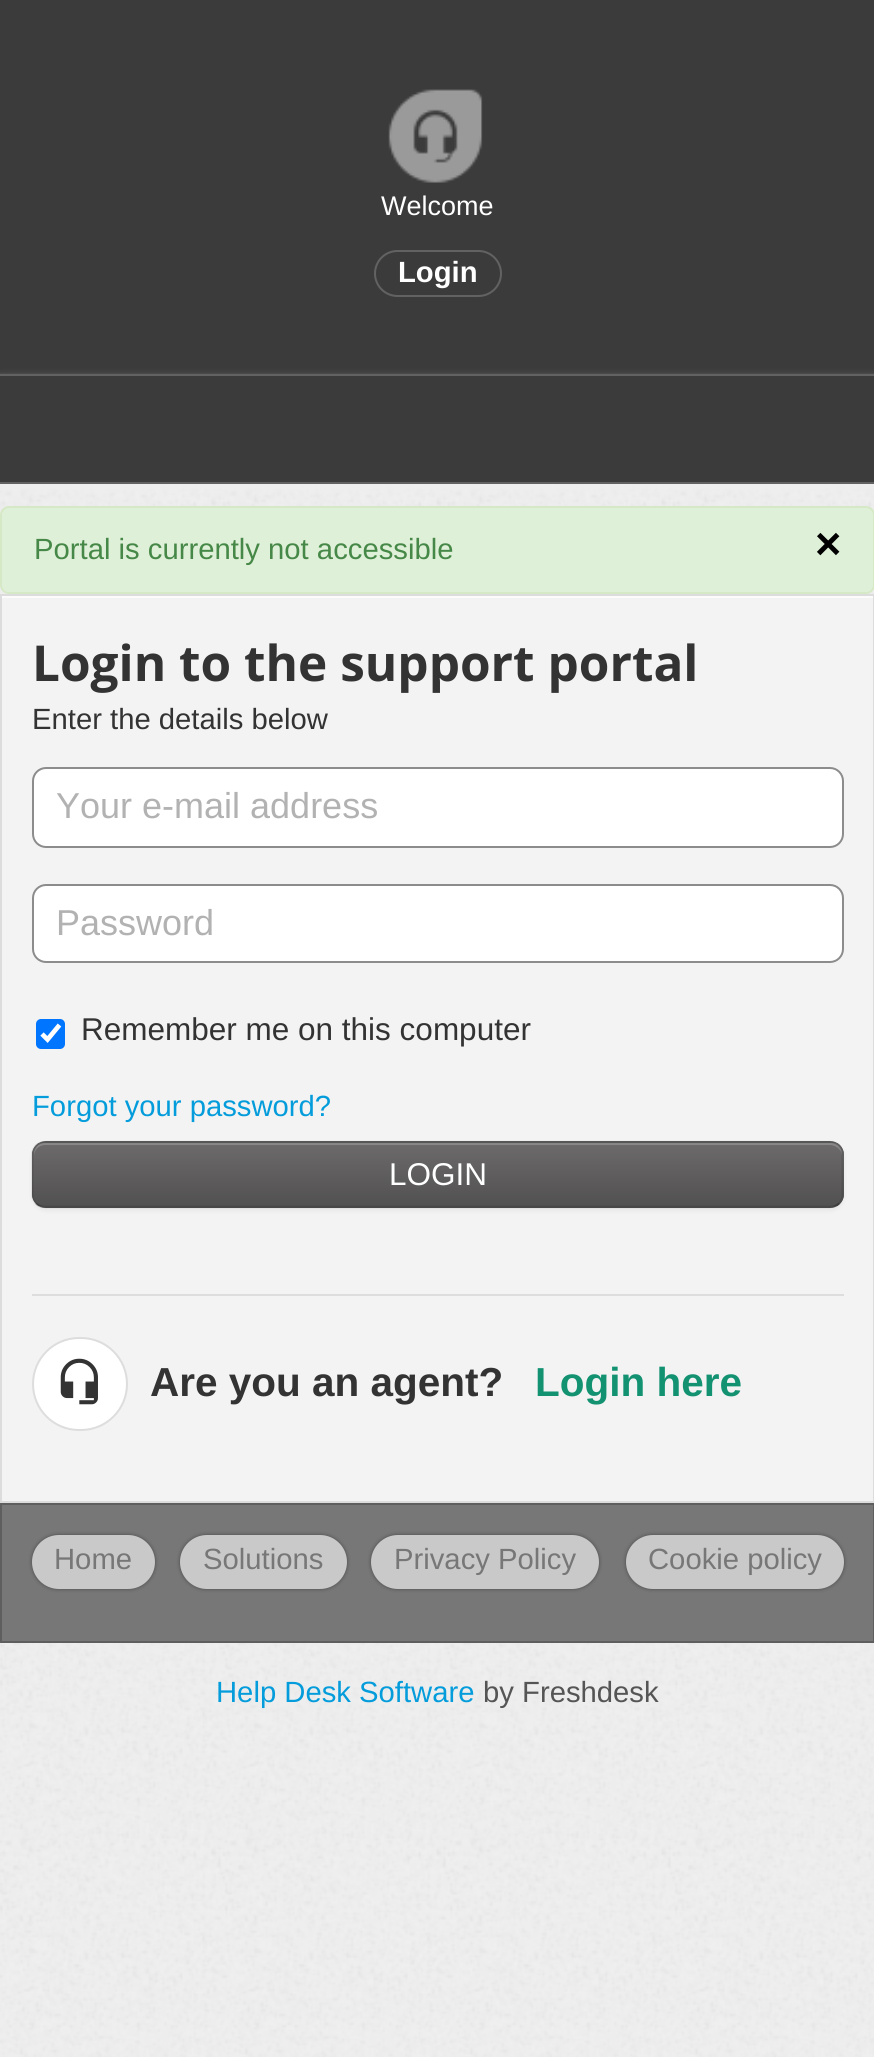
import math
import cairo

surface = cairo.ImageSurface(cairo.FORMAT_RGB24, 874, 2057)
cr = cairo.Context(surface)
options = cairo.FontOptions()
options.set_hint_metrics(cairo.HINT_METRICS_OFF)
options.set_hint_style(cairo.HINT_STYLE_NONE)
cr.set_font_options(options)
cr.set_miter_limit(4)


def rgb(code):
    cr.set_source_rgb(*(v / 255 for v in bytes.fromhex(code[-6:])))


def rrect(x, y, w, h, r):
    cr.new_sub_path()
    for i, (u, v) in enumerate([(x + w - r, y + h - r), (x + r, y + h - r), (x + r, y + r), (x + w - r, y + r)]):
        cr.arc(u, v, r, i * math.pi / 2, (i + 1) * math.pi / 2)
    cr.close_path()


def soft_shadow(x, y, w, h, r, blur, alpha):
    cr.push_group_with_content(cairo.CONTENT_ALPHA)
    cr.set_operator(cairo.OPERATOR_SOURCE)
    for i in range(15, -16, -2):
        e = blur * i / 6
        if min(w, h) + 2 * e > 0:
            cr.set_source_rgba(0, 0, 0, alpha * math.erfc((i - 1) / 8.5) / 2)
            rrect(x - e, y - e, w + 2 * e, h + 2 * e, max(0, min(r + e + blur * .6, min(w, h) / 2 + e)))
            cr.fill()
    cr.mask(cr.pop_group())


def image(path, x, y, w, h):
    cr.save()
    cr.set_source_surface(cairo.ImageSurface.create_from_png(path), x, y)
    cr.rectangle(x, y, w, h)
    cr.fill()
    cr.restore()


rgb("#efefef")
cr.paint()
image("img/1.png", 0, 484, 874, 1573)
rgb("#3b3b3b")
cr.rectangle(0, 0, 874, 374)
cr.fill()
image("img/2.png", 388, 89, 95, 94)
rrect(375, 251, 126, 45, 22.5)
rgb("#626262")
cr.stroke()
rgb("#eeeeee")
soft_shadow(0, 380, 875, 111, 0, 4.5, 1)
for x, y, w, h, color in [
    (0, 376, 874, 106, "#3b3b3b"),
    (0, 374, 874, 2, "#626262"),
    (0, 482, 874, 2, "#626262"),
]:
    rgb(color)
    cr.rectangle(x, y, w, h)
    cr.fill()
rgb("#dff0d8")
rrect(1, 507, 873, 86, 8)
cr.fill_preserve()
rgb("#d6e9c6")
cr.stroke()
cr.set_source_rgba(0.957, 0.957, 0.957, 0.9)
cr.rectangle(2, 598, 871, 903)
cr.fill()
rgb("#fbfbfb")
cr.rectangle(2, 596, 871, 2)
cr.fill()
cr.rectangle(1, 595, 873, 907)
rgb("#dcdcdc")
cr.stroke()
rgb("#ffffff")
rrect(33, 768, 810, 79, 13)
cr.fill_preserve()
rgb("#8c8c8c")
cr.stroke()
rgb("#ffffff")
rrect(33, 885, 810, 77, 13)
cr.fill_preserve()
rgb("#8c8c8c")
cr.stroke()
rgb("#0075ff")
rrect(36, 1019, 29, 30, 5)
cr.fill()
cr.new_path()
cr.move_to(42, 1034)
cr.line_to(47.5, 1039.5)
cr.line_to(59.5, 1025)
rgb("#ffffff")
cr.set_line_width(4.7)
cr.stroke()
rgb("#000000")
soft_shadow(32, 1143, 812, 68, 14, 2, 0.05)
rgb("#626060")
rrect(32, 1141, 812, 67, 14)
cr.fill()
cr.save()
rrect(32, 1141, 812, 67, 14)
cr.clip()
gradient = cairo.LinearGradient(438, 1143, 438, 1206)
gradient.add_color_stop_rgba(0, 0.424, 0.416, 0.416, 1)
gradient.add_color_stop_rgba(1, 0.322, 0.318, 0.318, 1)
cr.set_source(gradient)
cr.rectangle(32, 1143, 812, 63)
cr.fill()
cr.restore()
cr.set_source_rgba(1, 1, 1, 0.2)
cr.new_path()
cr.move_to(45, 1145)
cr.line_to(830, 1145)
cr.curve_to(836, 1145, 842, 1150, 842, 1156)
cr.line_to(842, 1154)
cr.curve_to(842, 1148, 837, 1143, 831, 1143)
cr.line_to(45, 1143)
cr.curve_to(39, 1143, 34, 1148, 34, 1154)
cr.line_to(34, 1156)
cr.curve_to(34, 1150, 39, 1145, 45, 1145)
cr.close_path()
cr.fill()
cr.new_path()
cr.move_to(839, 1203.5)
cr.curve_to(836.5, 1206, 833.5, 1207, 830, 1207)
cr.line_to(45, 1207)
cr.curve_to(41.5, 1207, 38.5, 1206, 36, 1203.5)
cr.set_source_rgba(0, 0, 0, 0.25)
cr.set_line_width(2.2)
cr.stroke()
cr.new_path()
cr.move_to(36, 1203.5)
cr.curve_to(34, 1201, 32.5, 1198, 32.5, 1195)
cr.line_to(32.5, 1154)
cr.curve_to(32.5, 1151, 34, 1148, 36, 1145.5)
cr.curve_to(38.5, 1143, 41.5, 1142, 45, 1142)
cr.line_to(830, 1142)
cr.curve_to(833.5, 1142, 836.5, 1143, 839, 1145.5)
cr.curve_to(841.5, 1148, 842.5, 1151, 842.5, 1154)
cr.line_to(842.5, 1195)
cr.curve_to(842.5, 1198, 841.5, 1201, 839, 1203.5)
cr.set_source_rgba(0, 0, 0, 0.1)
cr.stroke()
rgb("#dddddd")
cr.rectangle(32, 1294, 812, 2)
cr.fill()
rgb("#ffffff")
rrect(33, 1338, 94, 92, 46)
cr.fill_preserve()
rgb("#dddddd")
cr.set_line_width(2)
cr.stroke()
image("img/3.png", 60, 1358, 38, 47)
rgb("#777777")
cr.rectangle(1, 1504, 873, 138)
cr.fill_preserve()
rgb("#5e5e5e")
cr.stroke()
rgb("#494949")
soft_shadow(32, 1535, 123, 54, 27, 2, 1)
rgb("#c9c9c9")
rrect(32, 1535, 123, 54, 27)
cr.fill()
rgb("#494949")
soft_shadow(180, 1535, 167, 54, 27, 2, 1)
rgb("#c9c9c9")
rrect(180, 1535, 167, 54, 27)
cr.fill()
rgb("#494949")
soft_shadow(371, 1535, 228, 54, 27, 2, 1)
rgb("#c9c9c9")
rrect(371, 1535, 228, 54, 27)
cr.fill()
rgb("#494949")
soft_shadow(626, 1535, 218, 54, 27, 2, 1)
rgb("#c9c9c9")
rrect(626, 1535, 218, 54, 27)
cr.fill()
cr.select_font_face("Liberation Sans")
cr.set_font_size(27)
rgb("#ffffff")
cr.move_to(381, 215)
cr.show_text("Welcome")
cr.select_font_face("Liberation Sans", cairo.FONT_SLANT_NORMAL, cairo.FONT_WEIGHT_BOLD)
cr.set_font_size(29.25)
cr.move_to(398, 282)
cr.show_text("Login")
cr.select_font_face("Liberation Sans")
rgb("#468847")
cr.move_to(34, 559)
cr.show_text("Portal is currently not accessible")
cr.select_font_face("Liberation Sans", cairo.FONT_SLANT_NORMAL, cairo.FONT_WEIGHT_BOLD)
cr.set_font_size(45)
rgb("#000000")
cr.move_to(815, 559)
cr.show_text("×")
cr.select_font_face("Open Sans", cairo.FONT_SLANT_NORMAL, cairo.FONT_WEIGHT_BOLD)
cr.set_font_size(49.5)
rgb("#333333")
cr.move_to(32, 681)
cr.show_text("Login to the support portal")
cr.select_font_face("Liberation Sans")
cr.set_font_size(29.25)
cr.move_to(32, 729)
cr.show_text("Enter the details below")
cr.set_font_size(36)
rgb("#b2b2b2")
cr.move_to(56, 818)
cr.show_text("Your e-mail address")
cr.move_to(56, 935)
cr.show_text("Password")
cr.set_font_size(31.5)
rgb("#333333")
cr.move_to(81, 1040)
cr.show_text("Remember me on this computer")
cr.set_font_size(29.25)
rgb("#049cdb")
cr.move_to(32, 1116)
cr.show_text("Forgot your password?")
cr.set_font_size(31.5)
rgb("#ffffff")
cr.move_to(389, 1185)
cr.show_text("LOGIN")
cr.select_font_face("Liberation Sans", cairo.FONT_SLANT_NORMAL, cairo.FONT_WEIGHT_BOLD)
cr.set_font_size(40.5)
rgb("#333333")
cr.move_to(150, 1396)
cr.show_text("Are you an agent?")
rgb("#139272")
cr.move_to(535, 1396)
cr.show_text("Login here")
cr.select_font_face("Liberation Sans")
cr.set_font_size(29.25)
rgb("#777777")
for x, y, s in [
    (54, 1569, "Home"),
    (203, 1569, "Solutions"),
    (394, 1569, "Privacy Policy"),
    (648, 1569, "Cookie policy"),
]:
    cr.move_to(x, y)
    cr.show_text(s)
rgb("#049cdb")
cr.move_to(216, 1702)
cr.show_text("Help Desk Software")
rgb("#555555")
cr.move_to(483, 1702)
cr.show_text("by Freshdesk")
surface.write_to_png("page.png")
